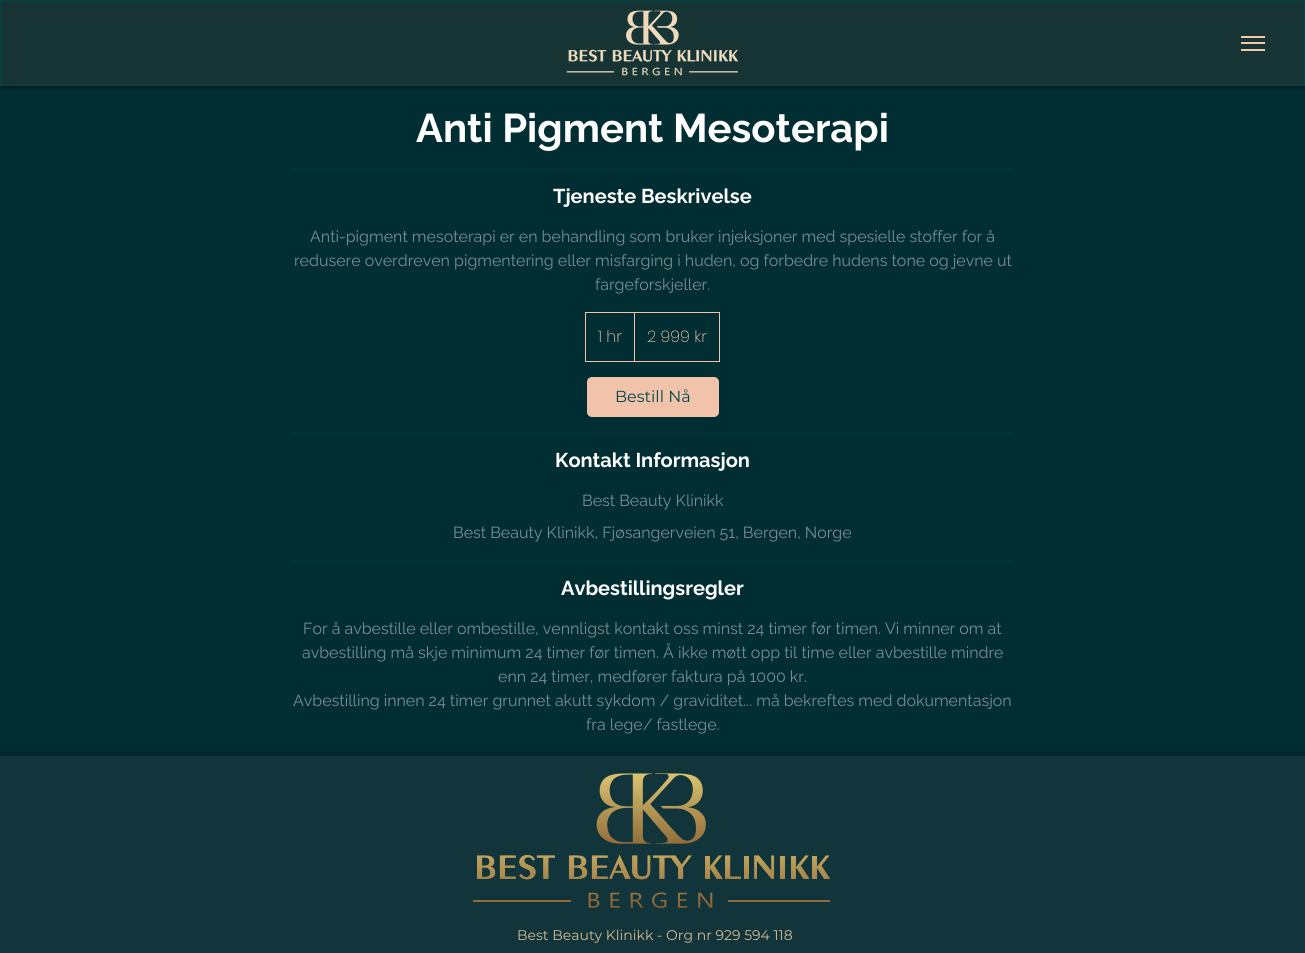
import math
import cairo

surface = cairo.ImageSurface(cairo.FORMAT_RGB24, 1305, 953)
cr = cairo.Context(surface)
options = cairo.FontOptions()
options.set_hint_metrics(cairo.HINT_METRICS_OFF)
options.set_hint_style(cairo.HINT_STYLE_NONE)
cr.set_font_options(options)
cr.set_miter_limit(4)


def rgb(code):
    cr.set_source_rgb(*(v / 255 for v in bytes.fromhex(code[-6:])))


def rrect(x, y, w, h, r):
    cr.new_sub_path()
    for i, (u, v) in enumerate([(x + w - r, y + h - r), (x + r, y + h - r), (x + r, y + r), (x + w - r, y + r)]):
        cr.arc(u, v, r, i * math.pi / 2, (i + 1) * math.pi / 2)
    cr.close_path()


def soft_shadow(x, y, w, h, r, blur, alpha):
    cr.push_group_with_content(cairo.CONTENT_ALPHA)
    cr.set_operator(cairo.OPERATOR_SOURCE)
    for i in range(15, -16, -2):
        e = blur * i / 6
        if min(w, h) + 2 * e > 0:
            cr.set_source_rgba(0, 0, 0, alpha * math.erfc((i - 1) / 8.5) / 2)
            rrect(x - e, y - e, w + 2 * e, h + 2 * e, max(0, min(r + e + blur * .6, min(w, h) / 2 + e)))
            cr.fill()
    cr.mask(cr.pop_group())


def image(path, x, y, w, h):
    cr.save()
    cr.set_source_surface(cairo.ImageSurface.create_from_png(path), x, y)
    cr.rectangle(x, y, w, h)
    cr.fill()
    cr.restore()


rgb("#01262b")
cr.paint()
rgb("#012e33")
cr.rectangle(0, 87, 1305, 665)
cr.fill()
rgb("#000000")
soft_shadow(0, 1, 1305, 86, 0, 2, 0.6)
rgb("#153433")
cr.rectangle(0.5, 0.5, 1304, 85)
cr.fill_preserve()
rgb("#004548")
cr.set_line_width(1)
cr.stroke()
image("img/1.png", 566, 10, 173, 66)
for x, y, w, h, color in [
    (1241, 49, 24, 2, "#f3c7a8"),
    (1241, 36, 24, 2, "#f3c7a8"),
    (1241, 42, 24, 2, "#f3c7a8"),
    (293, 168, 720, 1, "#01373b"),
]:
    rgb(color)
    cr.rectangle(x, y, w, h)
    cr.fill()
cr.rectangle(585.5, 312.5, 134, 49)
rgb("#f2c3ab")
cr.stroke()
cr.rectangle(634, 313, 1, 48)
cr.fill()
rrect(587, 377, 132, 40, 5)
cr.fill()
for x, y, w, h, color in [
    (293, 432, 720, 1, "#01373b"),
    (293, 560, 720, 1, "#01373b"),
    (0, 756, 1305, 197, "#12343b"),
]:
    rgb(color)
    cr.rectangle(x, y, w, h)
    cr.fill()
image("img/2.png", 473, 773, 357, 135)
cr.select_font_face("Raleway", cairo.FONT_SLANT_NORMAL, cairo.FONT_WEIGHT_BOLD)
cr.set_font_size(40)
rgb("#ffffff")
cr.move_to(416, 142)
cr.show_text("Anti Pigment Mesoterapi")
cr.set_font_size(20)
cr.move_to(553, 203)
cr.show_text("Tjeneste Beskrivelse")
cr.select_font_face("Raleway")
cr.set_font_size(16)
rgb("#788c94")
for x, y, s in [
    (310, 242, "Anti-pigment mesoterapi er en behandling som bruker injeksjoner med spesielle stoffer for å"),
    (294, 266, "redusere overdreven pigmentering eller misfarging i huden, og forbedre hudens tone og jevne ut"),
    (595, 290, "fargeforskjeller."),
]:
    cr.move_to(x, y)
    cr.show_text(s)
cr.select_font_face("Poppins ExtraLight")
rgb("#f2c3ab")
cr.move_to(598, 342)
cr.show_text("1 hr")
cr.move_to(647, 342)
cr.show_text("2 999 kr")
cr.select_font_face("Montserrat")
rgb("#004548")
cr.move_to(615, 402)
cr.show_text("Bestill Nå")
cr.select_font_face("Raleway", cairo.FONT_SLANT_NORMAL, cairo.FONT_WEIGHT_BOLD)
cr.set_font_size(20)
rgb("#ffffff")
cr.move_to(555, 467)
cr.show_text("Kontakt Informasjon")
cr.select_font_face("Raleway")
cr.set_font_size(16)
rgb("#788c94")
cr.move_to(582, 506)
cr.show_text("Best Beauty Klinikk")
cr.move_to(453, 538)
cr.show_text("Best Beauty Klinikk, Fjøsangerveien 51, Bergen, Norge")
cr.select_font_face("Raleway", cairo.FONT_SLANT_NORMAL, cairo.FONT_WEIGHT_BOLD)
cr.set_font_size(20)
rgb("#ffffff")
cr.move_to(561, 595)
cr.show_text("Avbestillingsregler")
cr.select_font_face("Raleway")
cr.set_font_size(16)
rgb("#788c94")
for x, y, s in [
    (303, 634, "For å avbestille eller ombestille, vennligst kontakt oss minst 24 timer før timen. Vi minner om at"),
    (302, 658, "avbestilling må skje minimum 24 timer før timen. Å ikke møtt opp til time eller avbestille mindre"),
    (498, 682, "enn 24 timer, medfører faktura på 1000 kr."),
    (293, 706, "Avbestilling innen 24 timer grunnet akutt sykdom / graviditet... må bekreftes med dokumentasjon"),
    (586, 730, "fra lege/ fastlege."),
]:
    cr.move_to(x, y)
    cr.show_text(s)
cr.select_font_face("Montserrat")
cr.set_font_size(14)
rgb("#d2bc95")
cr.move_to(517, 940)
cr.show_text("Best Beauty Klinikk - Org nr 929 594 118")
surface.write_to_png("page.png")
